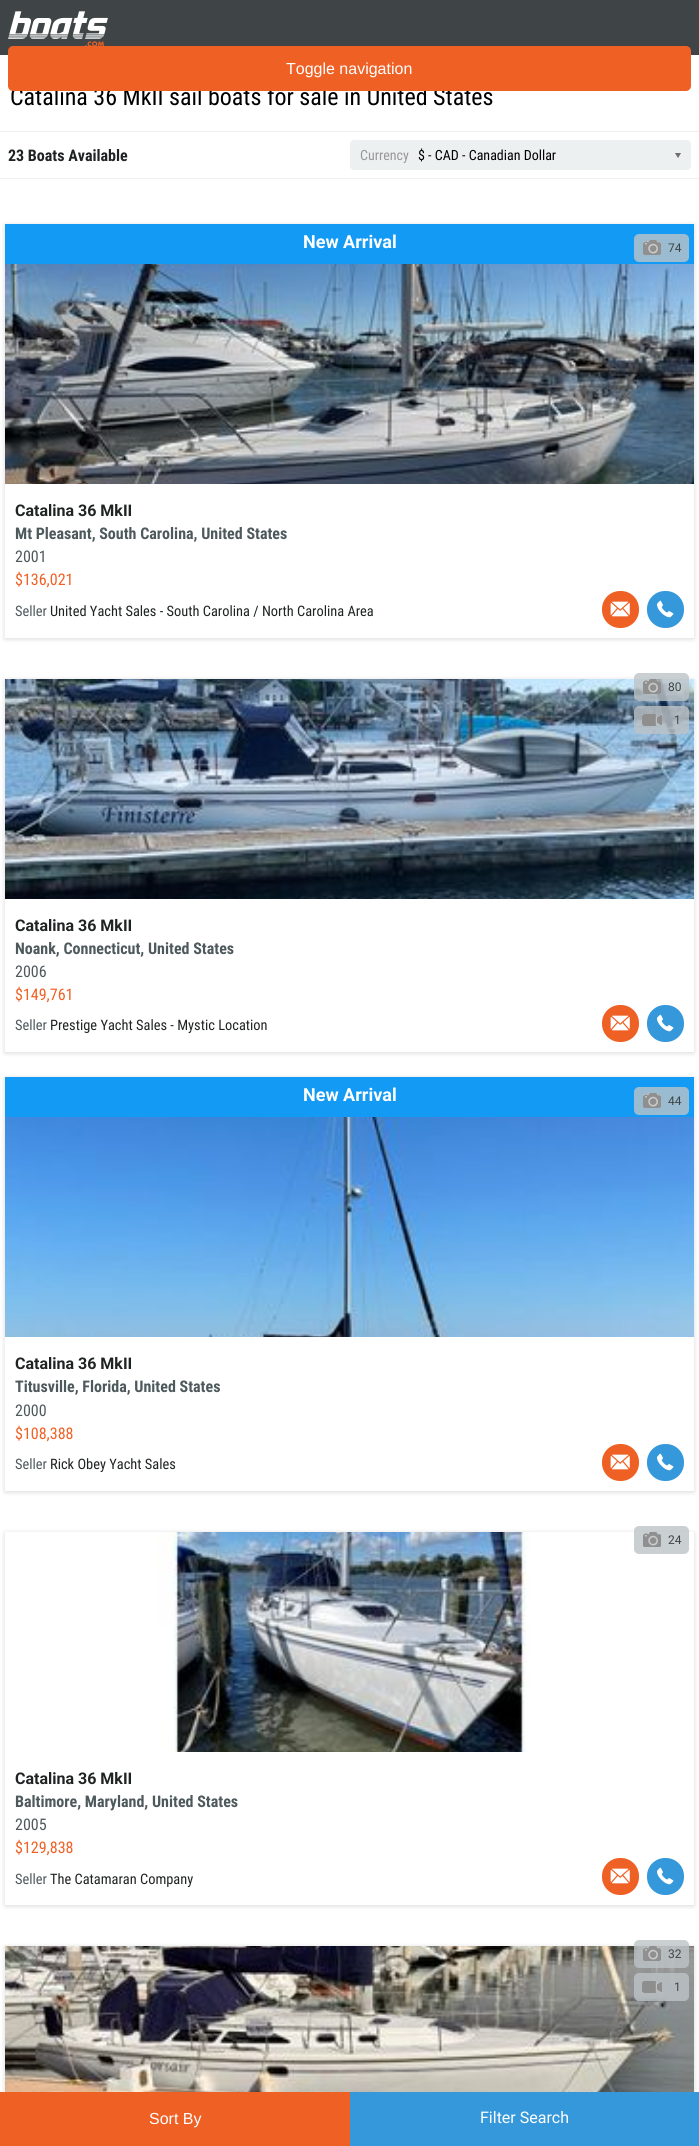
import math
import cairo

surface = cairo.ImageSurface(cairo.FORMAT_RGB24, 699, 2146)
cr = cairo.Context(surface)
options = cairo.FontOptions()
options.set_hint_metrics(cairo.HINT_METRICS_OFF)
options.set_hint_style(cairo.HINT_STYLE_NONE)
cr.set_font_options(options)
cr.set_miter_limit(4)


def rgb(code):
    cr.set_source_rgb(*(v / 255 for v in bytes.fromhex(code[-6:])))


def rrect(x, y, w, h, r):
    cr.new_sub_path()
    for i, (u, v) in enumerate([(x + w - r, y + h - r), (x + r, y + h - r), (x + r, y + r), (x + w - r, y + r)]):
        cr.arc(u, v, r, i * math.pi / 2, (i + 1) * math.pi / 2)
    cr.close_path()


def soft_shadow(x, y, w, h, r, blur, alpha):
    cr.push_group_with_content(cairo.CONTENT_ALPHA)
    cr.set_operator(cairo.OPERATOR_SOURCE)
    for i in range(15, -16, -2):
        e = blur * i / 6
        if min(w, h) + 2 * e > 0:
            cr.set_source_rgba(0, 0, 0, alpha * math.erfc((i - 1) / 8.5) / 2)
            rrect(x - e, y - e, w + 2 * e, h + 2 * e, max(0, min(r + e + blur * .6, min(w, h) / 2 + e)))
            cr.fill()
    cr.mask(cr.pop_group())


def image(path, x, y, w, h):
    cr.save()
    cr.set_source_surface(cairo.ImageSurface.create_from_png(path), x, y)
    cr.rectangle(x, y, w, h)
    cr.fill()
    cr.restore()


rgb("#ffffff")
cr.paint()
rgb("#3f4546")
cr.rectangle(0, 0, 699, 55)
cr.fill()
image("img/1.png", 8, 11, 100, 35)
rgb("#ecf0f1")
cr.rectangle(0, 131, 699, 1)
cr.fill()
cr.rectangle(0, 178, 699, 1)
cr.fill()
rrect(350, 140, 341, 30, 4)
cr.fill()
image("img/2.png", 675, 153, 6, 5)
cr.save()
cr.set_fill_rule(cairo.FILL_RULE_EVEN_ODD)
cr.new_path()
cr.move_to(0, 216)
cr.line_to(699, 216)
cr.line_to(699, 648)
cr.line_to(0, 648)
cr.close_path()
cr.move_to(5, 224)
cr.line_to(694, 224)
cr.line_to(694, 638)
cr.line_to(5, 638)
cr.close_path()
cr.clip()
rgb("#000000")
soft_shadow(5, 225, 689, 414, 0, 2.5, 0.15)
cr.restore()
rgb("#139af5")
cr.rectangle(5, 224, 689, 40)
cr.fill()
rgb("#9bbbd0")
rrect(634, 234, 55, 28, 5)
cr.fill()
image("img/3.png", 643, 240, 18, 15)
image("img/4.png", 5, 264, 689, 220)
rgb("#ef6024")
rrect(602, 591, 37, 37, 18)
cr.fill()
image("img/5.png", 610, 601, 20, 16)
rgb("#3598db")
rrect(647, 591, 37, 37, 18)
cr.fill()
image("img/6.png", 657, 600, 17, 18)
cr.save()
cr.set_fill_rule(cairo.FILL_RULE_EVEN_ODD)
cr.new_path()
cr.move_to(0, 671)
cr.line_to(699, 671)
cr.line_to(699, 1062)
cr.line_to(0, 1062)
cr.close_path()
cr.move_to(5, 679)
cr.line_to(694, 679)
cr.line_to(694, 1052)
cr.line_to(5, 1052)
cr.close_path()
cr.clip()
rgb("#000000")
soft_shadow(5, 680, 689, 373, 0, 2.5, 0.15)
cr.restore()
image("img/7.png", 5, 679, 689, 220)
cr.set_source_rgba(0.741, 0.765, 0.78, 0.8)
rrect(634, 673, 55, 28, 5)
cr.fill()
image("img/8.png", 643, 679, 18, 15)
rrect(634, 706, 55, 28, 5)
cr.fill()
image("img/9.png", 642, 714, 20, 12)
rgb("#ef6024")
rrect(602, 1005, 37, 37, 18)
cr.fill()
image("img/5.png", 610, 1015, 20, 16)
rgb("#3598db")
rrect(647, 1005, 37, 37, 18)
cr.fill()
image("img/6.png", 657, 1014, 17, 18)
cr.save()
cr.set_fill_rule(cairo.FILL_RULE_EVEN_ODD)
cr.new_path()
cr.move_to(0, 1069)
cr.line_to(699, 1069)
cr.line_to(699, 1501)
cr.line_to(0, 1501)
cr.close_path()
cr.move_to(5, 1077)
cr.line_to(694, 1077)
cr.line_to(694, 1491)
cr.line_to(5, 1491)
cr.close_path()
cr.clip()
rgb("#000000")
soft_shadow(5, 1078, 689, 414, 0, 2.5, 0.15)
cr.restore()
rgb("#139af5")
cr.rectangle(5, 1077, 689, 40)
cr.fill()
rgb("#9bbbd0")
rrect(634, 1087, 55, 28, 5)
cr.fill()
image("img/3.png", 643, 1093, 18, 15)
image("img/10.png", 5, 1117, 689, 220)
rgb("#ef6024")
rrect(602, 1444, 37, 37, 18)
cr.fill()
image("img/5.png", 610, 1454, 20, 16)
rgb("#3598db")
rrect(647, 1444, 37, 37, 18)
cr.fill()
image("img/6.png", 657, 1453, 17, 18)
cr.save()
cr.set_fill_rule(cairo.FILL_RULE_EVEN_ODD)
cr.new_path()
cr.move_to(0, 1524)
cr.line_to(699, 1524)
cr.line_to(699, 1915)
cr.line_to(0, 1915)
cr.close_path()
cr.move_to(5, 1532)
cr.line_to(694, 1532)
cr.line_to(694, 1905)
cr.line_to(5, 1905)
cr.close_path()
cr.clip()
rgb("#000000")
soft_shadow(5, 1533, 689, 373, 0, 2.5, 0.15)
cr.restore()
image("img/11.png", 5, 1532, 689, 220)
cr.set_source_rgba(0.741, 0.765, 0.78, 0.8)
rrect(634, 1526, 55, 28, 5)
cr.fill()
image("img/12.png", 643, 1532, 18, 15)
rgb("#ef6024")
rrect(602, 1858, 37, 37, 18)
cr.fill()
image("img/5.png", 610, 1868, 20, 16)
rgb("#3598db")
rrect(647, 1858, 37, 37, 18)
cr.fill()
image("img/6.png", 657, 1867, 17, 18)
rgb("#000000")
soft_shadow(5, 1947, 689, 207, 0, 2.5, 0.15)
image("img/13.png", 5, 1946, 689, 146)
cr.set_source_rgba(0.741, 0.765, 0.78, 0.8)
rrect(634, 1940, 55, 28, 5)
cr.fill()
image("img/14.png", 643, 1946, 18, 15)
rrect(634, 1973, 55, 28, 5)
cr.fill()
image("img/15.png", 642, 1981, 20, 12)
rgb("#ef6024")
cr.rectangle(0, 2092, 350, 54)
cr.fill()
rgb("#3598db")
cr.rectangle(350, 2092, 349, 54)
cr.fill()
cr.select_font_face("Roboto Condensed")
cr.set_font_size(24)
rgb("#000000")
cr.move_to(10, 105)
cr.show_text("Catalina 36 MkII sail boats for sale in United States")
rgb("#ef6024")
rrect(8, 46, 683, 45, 5)
cr.fill()
cr.select_font_face("Liberation Sans")
cr.set_font_size(16)
rgb("#ffffff")
cr.move_to(286, 74)
cr.show_text("Toggle navigation")
cr.select_font_face("Roboto Condensed", cairo.FONT_SLANT_NORMAL, cairo.FONT_WEIGHT_BOLD)
rgb("#202323")
cr.move_to(8, 161)
cr.show_text("23 Boats Available")
cr.select_font_face("Roboto Condensed")
cr.set_font_size(14)
rgb("#979997")
cr.move_to(360, 160)
cr.show_text("Currency")
rgb("#000000")
cr.move_to(418, 160)
cr.show_text("$ - CAD - Canadian Dollar")
cr.select_font_face("Roboto", cairo.FONT_SLANT_NORMAL, cairo.FONT_WEIGHT_BOLD)
cr.set_font_size(18)
rgb("#ffffff")
cr.move_to(303, 248)
cr.show_text("New Arrival")
cr.select_font_face("Roboto")
cr.set_font_size(12)
rgb("#3f4546")
cr.move_to(668, 252)
cr.show_text("74")
cr.select_font_face("Roboto", cairo.FONT_SLANT_NORMAL, cairo.FONT_WEIGHT_BOLD)
cr.set_font_size(16)
rgb("#202323")
cr.move_to(15, 516)
cr.show_text("Catalina 36 MkII")
cr.select_font_face("Roboto Condensed", cairo.FONT_SLANT_NORMAL, cairo.FONT_WEIGHT_BOLD)
rgb("#4e595c")
cr.move_to(15, 539)
cr.show_text("Mt Pleasant, South Carolina, United States")
cr.select_font_face("Roboto Condensed")
cr.move_to(15, 562)
cr.show_text("2001")
rgb("#ef6024")
cr.move_to(15, 585)
cr.show_text("$136,021")
cr.set_font_size(14.4)
rgb("#4e595c")
cr.move_to(15, 616)
cr.show_text("Seller")
rgb("#202323")
cr.move_to(50, 616)
cr.show_text("United Yacht Sales - South Carolina / North Carolina Area")
cr.select_font_face("Roboto")
cr.set_font_size(12)
rgb("#3f4546")
cr.move_to(668, 691)
cr.show_text("80")
cr.move_to(674, 724)
cr.show_text("1")
cr.select_font_face("Roboto", cairo.FONT_SLANT_NORMAL, cairo.FONT_WEIGHT_BOLD)
cr.set_font_size(16)
rgb("#202323")
cr.move_to(15, 931)
cr.show_text("Catalina 36 MkII")
cr.select_font_face("Roboto Condensed", cairo.FONT_SLANT_NORMAL, cairo.FONT_WEIGHT_BOLD)
rgb("#4e595c")
cr.move_to(15, 954)
cr.show_text("Noank, Connecticut, United States")
cr.select_font_face("Roboto Condensed")
cr.move_to(15, 977)
cr.show_text("2006")
rgb("#ef6024")
cr.move_to(15, 1000)
cr.show_text("$149,761")
cr.set_font_size(14.4)
rgb("#4e595c")
cr.move_to(15, 1030)
cr.show_text("Seller")
rgb("#202323")
cr.move_to(50, 1030)
cr.show_text("Prestige Yacht Sales - Mystic Location")
cr.select_font_face("Roboto", cairo.FONT_SLANT_NORMAL, cairo.FONT_WEIGHT_BOLD)
cr.set_font_size(18)
rgb("#ffffff")
cr.move_to(303, 1101)
cr.show_text("New Arrival")
cr.select_font_face("Roboto")
cr.set_font_size(12)
rgb("#3f4546")
cr.move_to(668, 1105)
cr.show_text("44")
cr.select_font_face("Roboto", cairo.FONT_SLANT_NORMAL, cairo.FONT_WEIGHT_BOLD)
cr.set_font_size(16)
rgb("#202323")
cr.move_to(15, 1369)
cr.show_text("Catalina 36 MkII")
cr.select_font_face("Roboto Condensed", cairo.FONT_SLANT_NORMAL, cairo.FONT_WEIGHT_BOLD)
rgb("#4e595c")
cr.move_to(15, 1392)
cr.show_text("Titusville, Florida, United States")
cr.select_font_face("Roboto Condensed")
cr.move_to(15, 1416)
cr.show_text("2000")
rgb("#ef6024")
cr.move_to(15, 1439)
cr.show_text("$108,388")
cr.set_font_size(14.4)
rgb("#4e595c")
cr.move_to(15, 1469)
cr.show_text("Seller")
rgb("#202323")
cr.move_to(50, 1469)
cr.show_text("Rick Obey Yacht Sales")
cr.select_font_face("Roboto")
cr.set_font_size(12)
rgb("#3f4546")
cr.move_to(668, 1544)
cr.show_text("24")
cr.select_font_face("Roboto", cairo.FONT_SLANT_NORMAL, cairo.FONT_WEIGHT_BOLD)
cr.set_font_size(16)
rgb("#202323")
cr.move_to(15, 1784)
cr.show_text("Catalina 36 MkII")
cr.select_font_face("Roboto Condensed", cairo.FONT_SLANT_NORMAL, cairo.FONT_WEIGHT_BOLD)
rgb("#4e595c")
cr.move_to(15, 1807)
cr.show_text("Baltimore, Maryland, United States")
cr.select_font_face("Roboto Condensed")
cr.move_to(15, 1830)
cr.show_text("2005")
rgb("#ef6024")
cr.move_to(15, 1853)
cr.show_text("$129,838")
cr.set_font_size(14.4)
rgb("#4e595c")
cr.move_to(15, 1884)
cr.show_text("Seller")
rgb("#202323")
cr.move_to(50, 1884)
cr.show_text("The Catamaran Company")
cr.select_font_face("Roboto")
cr.set_font_size(12)
rgb("#3f4546")
cr.move_to(668, 1958)
cr.show_text("32")
cr.move_to(674, 1991)
cr.show_text("1")
cr.select_font_face("Liberation Sans")
cr.set_font_size(16)
rgb("#ffffff")
cr.move_to(149, 2124)
cr.show_text("Sort By")
cr.select_font_face("Roboto")
cr.move_to(480, 2123)
cr.show_text("Filter Search")
surface.write_to_png("page.png")
